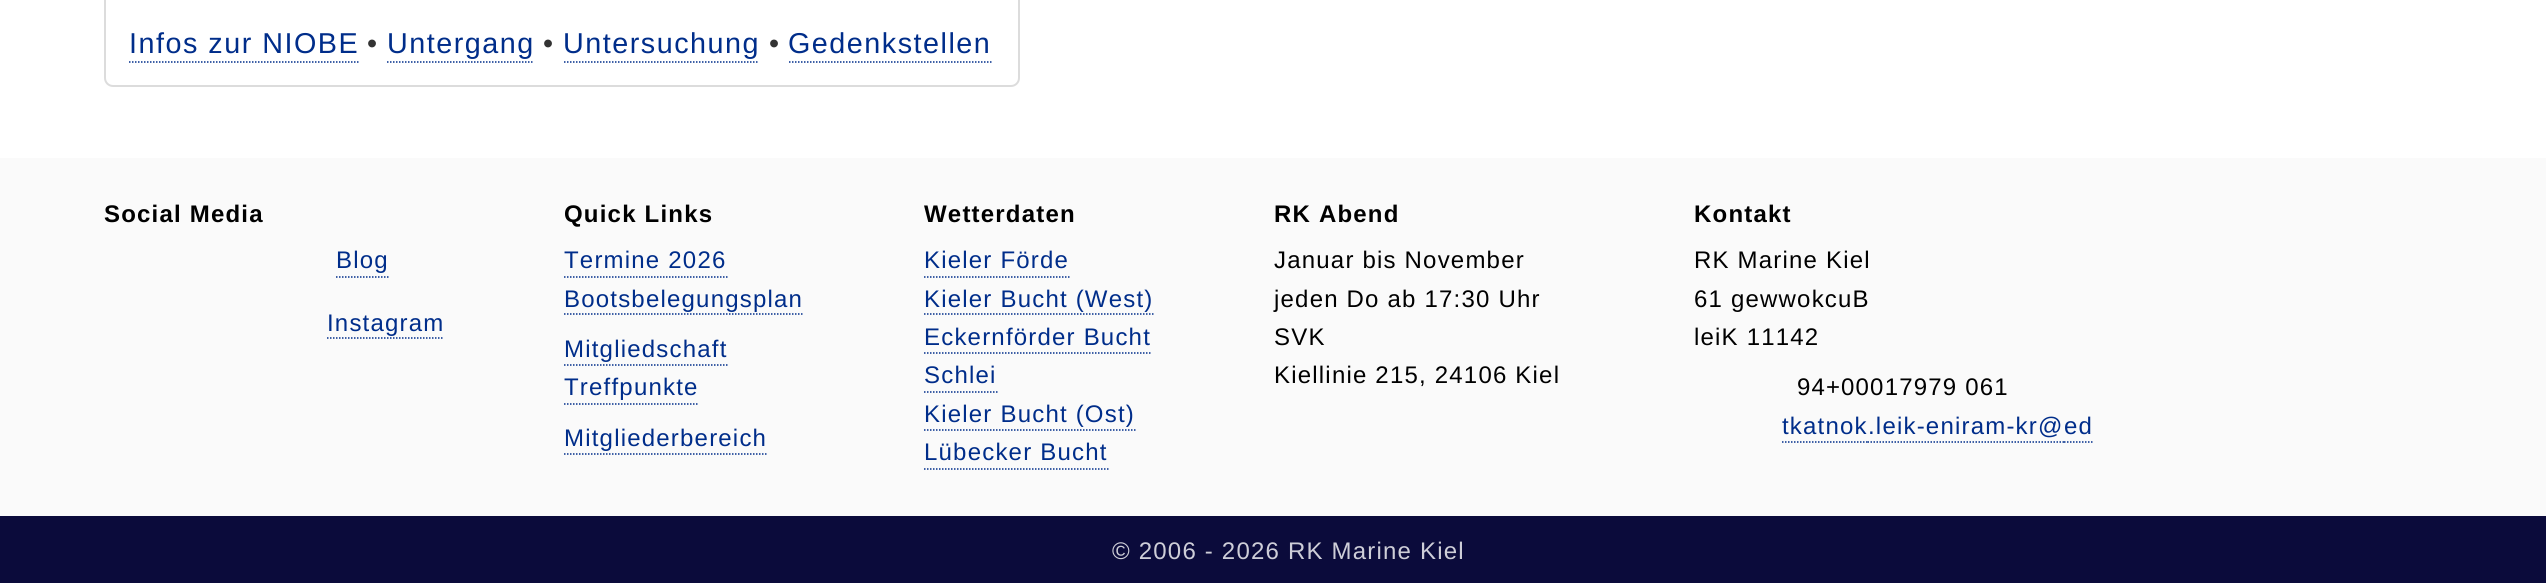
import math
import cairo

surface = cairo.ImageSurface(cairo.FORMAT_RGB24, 2546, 583)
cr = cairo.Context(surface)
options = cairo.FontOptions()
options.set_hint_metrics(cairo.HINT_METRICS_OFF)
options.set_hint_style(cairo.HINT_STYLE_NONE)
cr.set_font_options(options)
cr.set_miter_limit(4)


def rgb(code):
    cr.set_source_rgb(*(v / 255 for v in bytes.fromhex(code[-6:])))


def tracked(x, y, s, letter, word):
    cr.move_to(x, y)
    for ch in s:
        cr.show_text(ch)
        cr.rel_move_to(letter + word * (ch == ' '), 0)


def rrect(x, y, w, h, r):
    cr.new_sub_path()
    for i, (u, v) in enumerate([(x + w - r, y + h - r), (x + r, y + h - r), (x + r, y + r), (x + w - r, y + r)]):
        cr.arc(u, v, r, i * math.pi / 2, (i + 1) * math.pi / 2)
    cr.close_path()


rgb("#ffffff")
cr.paint()
rrect(105, -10, 914, 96, 8)
rgb("#dcdcdc")
cr.stroke()
cr.new_path()
cr.move_to(129, 62)
cr.line_to(358.5, 62)
rgb("#002d8a")
cr.set_line_width(1.5)
cr.set_dash([1.5, 1.5])
cr.stroke()
cr.new_path()
cr.move_to(387, 62)
cr.line_to(534, 62)
cr.stroke()
cr.new_path()
cr.move_to(564, 62)
cr.line_to(759, 62)
cr.stroke()
cr.new_path()
cr.move_to(789, 62)
cr.line_to(991.5, 62)
cr.stroke()
rgb("#fafafa")
cr.rectangle(0, 158, 2546, 358)
cr.fill()
cr.new_path()
cr.move_to(336, 277)
cr.line_to(388.5, 277)
rgb("#002d8a")
cr.stroke()
cr.new_path()
cr.move_to(327, 338)
cr.line_to(444, 338)
cr.stroke()
cr.new_path()
cr.move_to(564, 277)
cr.line_to(727.5, 277)
cr.stroke()
cr.new_path()
cr.move_to(564, 314)
cr.line_to(804, 314)
cr.stroke()
cr.new_path()
cr.move_to(564, 365)
cr.line_to(727.5, 365)
cr.stroke()
cr.new_path()
cr.move_to(564, 404)
cr.line_to(699, 404)
cr.stroke()
cr.new_path()
cr.move_to(564, 454)
cr.line_to(768, 454)
cr.stroke()
cr.new_path()
cr.move_to(924, 277)
cr.line_to(1069.5, 277)
cr.stroke()
cr.new_path()
cr.move_to(924, 314)
cr.line_to(1153.5, 314)
cr.stroke()
cr.new_path()
cr.move_to(924, 353)
cr.line_to(1152, 353)
cr.stroke()
cr.new_path()
cr.move_to(924, 392)
cr.line_to(997.5, 392)
cr.stroke()
cr.new_path()
cr.move_to(924, 430)
cr.line_to(1135.5, 430)
cr.stroke()
cr.new_path()
cr.move_to(924, 469)
cr.line_to(1108.5, 469)
cr.stroke()
cr.new_path()
cr.move_to(1867.5, 442)
cr.line_to(2064, 442)
cr.stroke()
cr.new_path()
cr.move_to(1782, 442)
cr.line_to(1867.5, 442)
cr.stroke()
cr.new_path()
cr.move_to(2064, 442)
cr.line_to(2092.5, 442)
cr.stroke()
rgb("#0b0b3b")
cr.rectangle(0, 516, 2546, 67)
cr.fill()
cr.select_font_face("Liberation Sans")
cr.set_font_size(28.75)
rgb("#002d8a")
tracked(129, 53, "Infos zur NIOBE", 1.5, 0)
rgb("#333333")
tracked(367, 53, "•", 1, 0)
rgb("#002d8a")
tracked(387, 53, "Untergang", 1.5, 0)
rgb("#333333")
tracked(543, 53, "•", 1, 0)
rgb("#002d8a")
tracked(563, 53, "Untersuchung", 1.5, 0)
rgb("#333333")
tracked(769, 53, "•", 1, 0)
rgb("#002d8a")
tracked(788, 53, "Gedenkstellen", 1.5, 0)
cr.select_font_face("Liberation Sans", cairo.FONT_SLANT_NORMAL, cairo.FONT_WEIGHT_BOLD)
cr.set_font_size(24)
rgb("#000000")
tracked(104, 222, "Social Media", 1.2, 0)
cr.select_font_face("Liberation Sans")
rgb("#002d8a")
tracked(336, 268, "Blog", 1.2, 0)
tracked(327, 331, "Instagram", 1.2, 0)
cr.select_font_face("Liberation Sans", cairo.FONT_SLANT_NORMAL, cairo.FONT_WEIGHT_BOLD)
rgb("#000000")
tracked(564, 222, "Quick Links", 1.2, 0)
cr.select_font_face("Liberation Sans")
rgb("#002d8a")
for x, y, s in [
    (564, 268, "Termine 2026"),
    (564, 307, "Bootsbelegungsplan"),
    (564, 357, "Mitgliedschaft"),
    (564, 395, "Treffpunkte"),
    (564, 446, "Mitgliederbereich"),
]:
    tracked(x, y, s, 1.2, 0)
cr.select_font_face("Liberation Sans", cairo.FONT_SLANT_NORMAL, cairo.FONT_WEIGHT_BOLD)
rgb("#000000")
tracked(924, 222, "Wetterdaten", 1.2, 0)
cr.select_font_face("Liberation Sans")
rgb("#002d8a")
for x, y, s in [
    (924, 268, "Kieler Förde"),
    (924, 307, "Kieler Bucht (West)"),
    (924, 345, "Eckernförder Bucht"),
    (924, 383, "Schlei"),
    (924, 422, "Kieler Bucht (Ost)"),
    (924, 460, "Lübecker Bucht"),
]:
    tracked(x, y, s, 1.2, 0)
cr.select_font_face("Liberation Sans", cairo.FONT_SLANT_NORMAL, cairo.FONT_WEIGHT_BOLD)
rgb("#000000")
tracked(1274, 222, "RK Abend", 1.2, 0)
cr.select_font_face("Liberation Sans")
for x, y, s in [
    (1274, 268, "Januar bis November"),
    (1274, 307, "jeden Do ab 17:30 Uhr"),
    (1274, 345, "SVK"),
    (1274, 383, "Kiellinie 215, 24106 Kiel"),
]:
    tracked(x, y, s, 1.2, 0)
cr.select_font_face("Liberation Sans", cairo.FONT_SLANT_NORMAL, cairo.FONT_WEIGHT_BOLD)
tracked(1694, 222, "Kontakt", 1.2, 0)
cr.select_font_face("Liberation Sans")
for x, y, s in [
    (1694, 268, "RK Marine Kiel"),
    (1694, 307, "61 gewwokcuB"),
    (1694, 345, "leiK 11142"),
    (1797, 395, "94+"),
    (1841, 395, "00017979 061"),
]:
    tracked(x, y, s, 1.2, 0)
rgb("#002d8a")
for x, y, s in [
    (1782, 434, "tkatnok"),
    (1868, 434, ".leik-eniram-kr@"),
    (2064, 434, "ed"),
]:
    tracked(x, y, s, 1.2, 0)
rgb("#ceced8")
tracked(1112, 559, "© 2006 - 2026 RK Marine Kiel", 1.2, 0)
surface.write_to_png("page.png")
